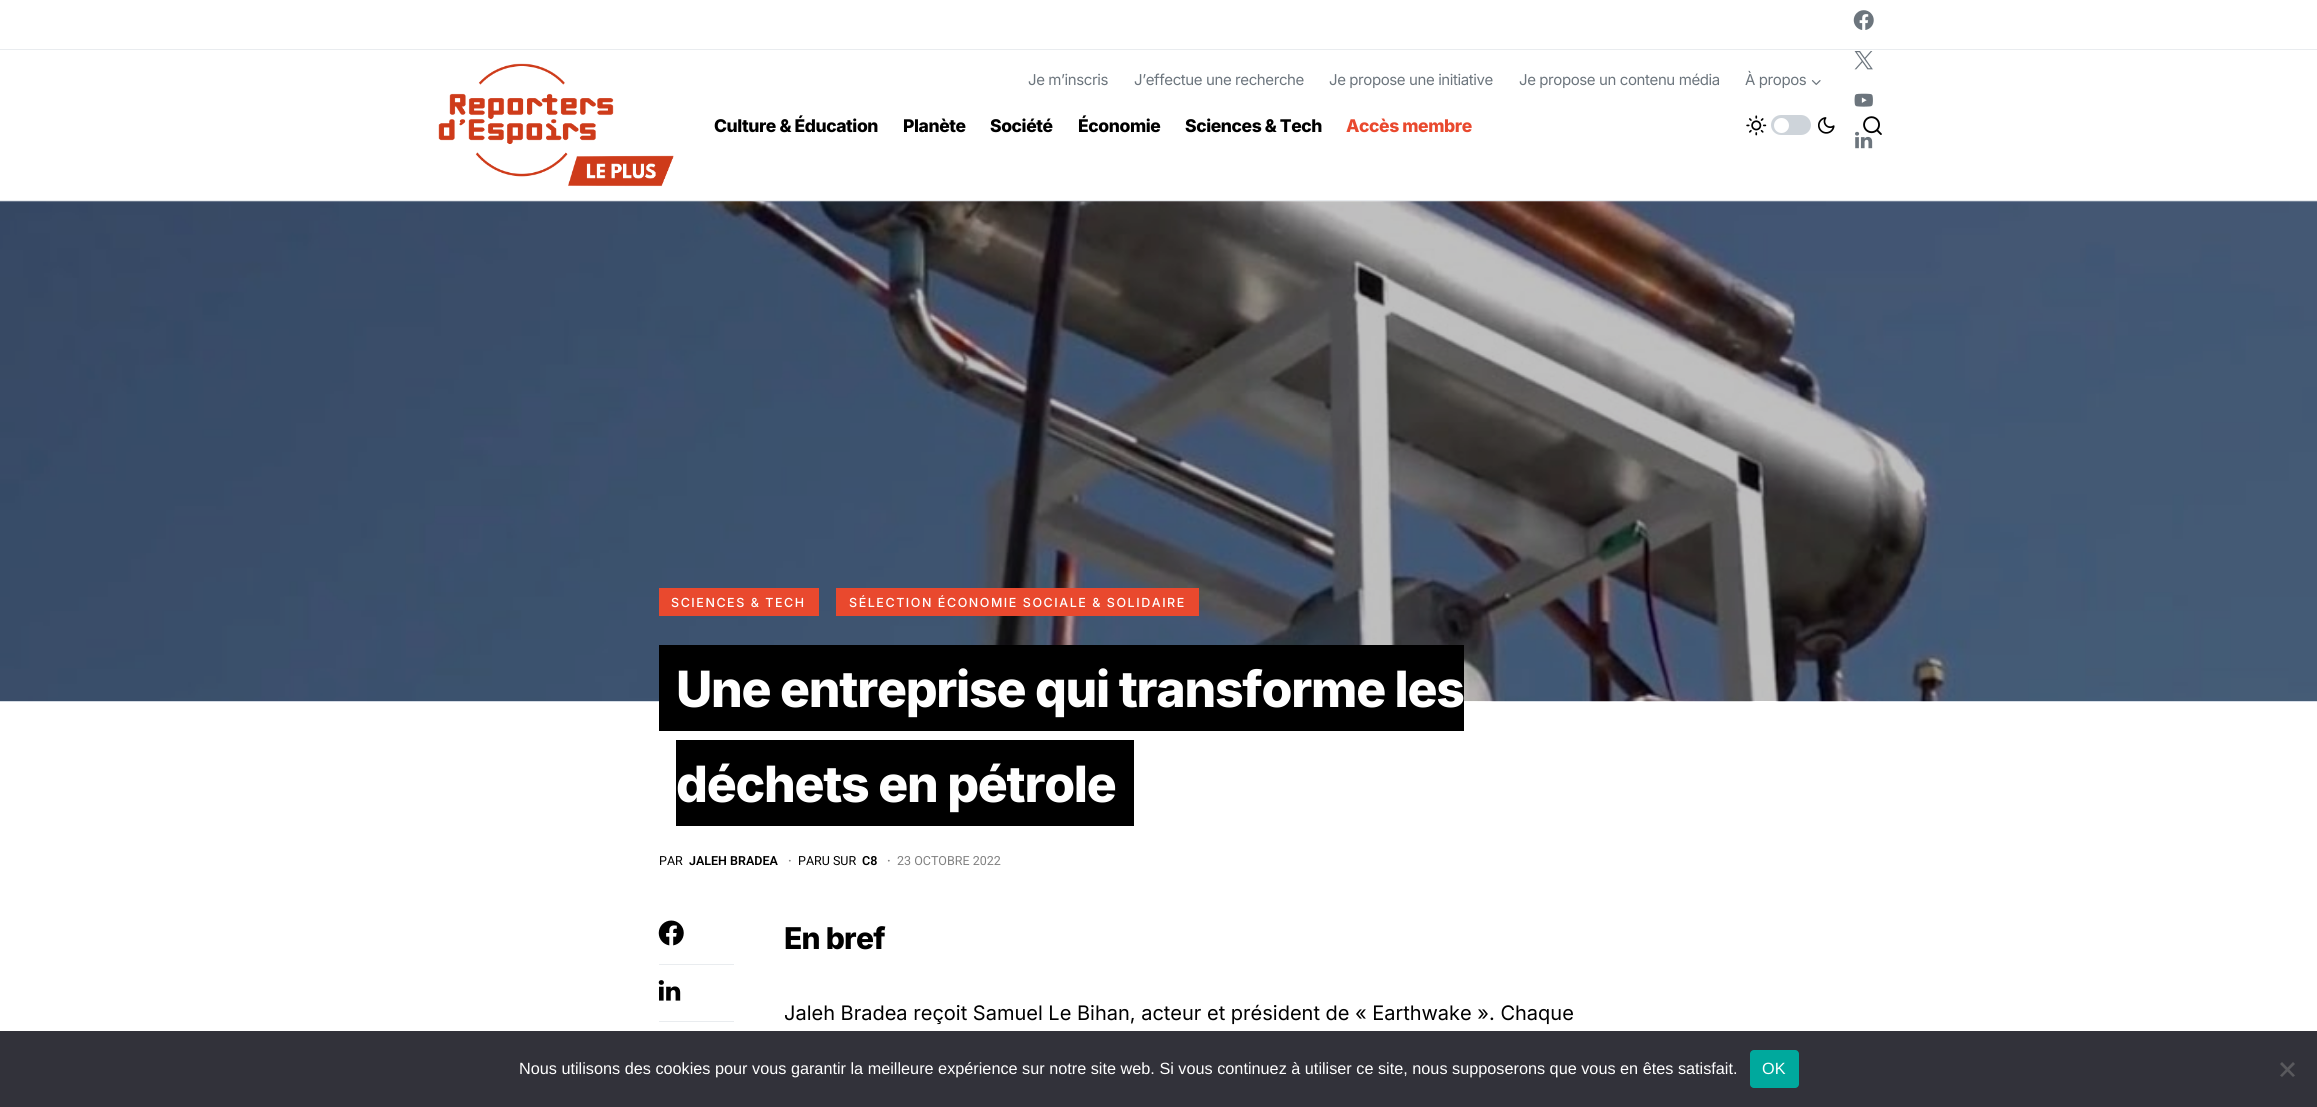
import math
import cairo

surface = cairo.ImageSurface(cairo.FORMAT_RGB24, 2317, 1107)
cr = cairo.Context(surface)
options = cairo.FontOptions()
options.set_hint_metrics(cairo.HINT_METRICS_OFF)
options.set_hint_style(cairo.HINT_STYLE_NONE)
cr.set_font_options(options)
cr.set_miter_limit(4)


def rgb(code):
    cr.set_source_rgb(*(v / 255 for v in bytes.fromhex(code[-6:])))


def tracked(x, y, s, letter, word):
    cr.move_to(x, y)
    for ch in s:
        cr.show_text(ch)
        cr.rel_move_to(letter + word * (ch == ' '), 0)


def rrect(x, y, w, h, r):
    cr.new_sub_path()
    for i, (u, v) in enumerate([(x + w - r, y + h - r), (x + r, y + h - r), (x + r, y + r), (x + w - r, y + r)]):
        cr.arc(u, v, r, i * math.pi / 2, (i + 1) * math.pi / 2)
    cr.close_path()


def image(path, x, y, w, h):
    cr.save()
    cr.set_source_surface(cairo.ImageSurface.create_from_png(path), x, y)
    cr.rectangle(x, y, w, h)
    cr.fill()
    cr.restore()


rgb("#ffffff")
cr.paint()
rgb("#e9ecef")
cr.rectangle(0, 49, 2317, 1)
cr.fill()
image("img/1.png", 1811, 80, 10, 5)
image("img/2.png", 1853, 10, 21, 20)
image("img/3.png", 1854, 51, 19, 19)
image("img/4.png", 1854, 93, 19, 14)
image("img/9.png", 1863, 116, 19, 19)
image("img/5.png", 1855, 131, 18, 18)
cr.rectangle(0, 200, 2317, 1)
cr.fill()
image("img/6.png", 438, 63, 236, 124)
image("img/7.png", 1746, 115, 21, 21)
rgb("#ced4da")
rrect(1771, 115, 40, 20, 10)
cr.fill()
rgb("#ffffff")
cr.arc(1781.5, 125.5, 7.5, 0, 2 * math.pi)
cr.fill()
image("img/8.png", 1818, 117, 17, 17)
image("img/10.png", 0, 201, 2317, 501)
for x, y, w, h, color in [
    (659, 588, 160, 28, "#e9492e"),
    (836, 588, 363, 28, "#e9492e"),
    (659, 645, 805, 86, "#000000"),
    (676, 740, 458, 86, "#000000"),
]:
    rgb(color)
    cr.rectangle(x, y, w, h)
    cr.fill()
image("img/11.png", 658, 920, 26, 26)
rgb("#e9ecef")
cr.rectangle(659, 964, 75, 1)
cr.fill()
image("img/12.png", 658, 980, 23, 21)
cr.rectangle(659, 1021, 75, 1)
cr.fill()
rgb("#32323a")
cr.rectangle(0, 1031, 2317, 76)
cr.fill()
rgb("#00a99d")
rrect(1750, 1050, 49, 38, 4)
cr.fill()
rgb("#59595d")
cr.new_path()
cr.move_to(2293, 1062)
cr.line_to(2295, 1064)
cr.line_to(2282, 1077)
cr.line_to(2280, 1075.5)
cr.close_path()
cr.fill()
cr.new_path()
cr.move_to(2280, 1064)
cr.line_to(2282, 1062)
cr.line_to(2295, 1075.5)
cr.line_to(2293, 1077)
cr.close_path()
cr.fill()
cr.select_font_face("Inter")
cr.set_font_size(15)
rgb("#6c757d")
for x, y, s in [
    (1028, 85, "Je m’inscris"),
    (1134, 85, "J’effectue une recherche"),
    (1329, 85, "Je propose une initiative"),
    (1519, 85, "Je propose un contenu média"),
    (1745, 85, "À propos"),
]:
    tracked(x, y, s, -0.4, 0)
cr.select_font_face("Inter ExtraBold")
cr.set_font_size(17.5)
rgb("#000000")
for x, y, s in [
    (714, 132, "Culture & Éducation"),
    (903, 132, "Planète"),
    (990, 132, "Société"),
    (1078, 132, "Économie"),
    (1185, 132, "Sciences & Tech"),
]:
    tracked(x, y, s, -0.4, 0)
rgb("#e9492e")
tracked(1346, 132, "Accès membre", -0.4, 0)
cr.select_font_face("Inter Medium")
cr.set_font_size(12.5)
rgb("#ffffff")
tracked(671, 607, "SCIENCES & TECH", 1.55, 0)
tracked(849, 607, "SÉLECTION ÉCONOMIE SOCIALE & SOLIDAIRE", 1.55, 0)
cr.select_font_face("Inter ExtraBold")
cr.set_font_size(50)
tracked(676, 707, "Une entreprise qui transforme les", -1.25, 0)
tracked(676, 802, "déchets en pétrole", -1.25, 0)
cr.select_font_face("Roboto")
cr.set_font_size(12.5)
rgb("#000000")
cr.move_to(659, 865)
cr.show_text("PAR")
cr.select_font_face("Roboto SemiBold")
cr.move_to(689, 865)
cr.show_text("JALEH BRADEA")
rgb("#818181")
cr.move_to(788, 865)
cr.show_text("·")
cr.select_font_face("Roboto")
rgb("#000000")
cr.move_to(798, 865)
cr.show_text("PARU SUR")
cr.select_font_face("Roboto SemiBold")
cr.move_to(862, 865)
cr.show_text("C8")
rgb("#818181")
cr.move_to(887, 865)
cr.show_text("·")
cr.select_font_face("Roboto")
cr.move_to(897, 865)
cr.show_text("23 OCTOBRE 2022")
cr.select_font_face("Inter ExtraBold")
cr.set_font_size(30)
rgb("#000000")
tracked(784, 949, "En bref", -0.75, 0)
cr.select_font_face("Inter")
cr.set_font_size(20)
cr.move_to(784, 1020)
cr.show_text("Jaleh Bradea reçoit Samuel Le Bihan, acteur et président de « Earthwake ». Chaque")
cr.select_font_face("Liberation Sans")
cr.set_font_size(16.25)
rgb("#ffffff")
cr.move_to(519, 1074)
cr.show_text("Nous utilisons des cookies pour vous garantir la meilleure expérience sur notre site web. Si vous continuez à utiliser ce site, nous supposerons que vous en êtes satisfait.")
cr.move_to(1762, 1074)
cr.show_text("OK")
surface.write_to_png("page.png")
